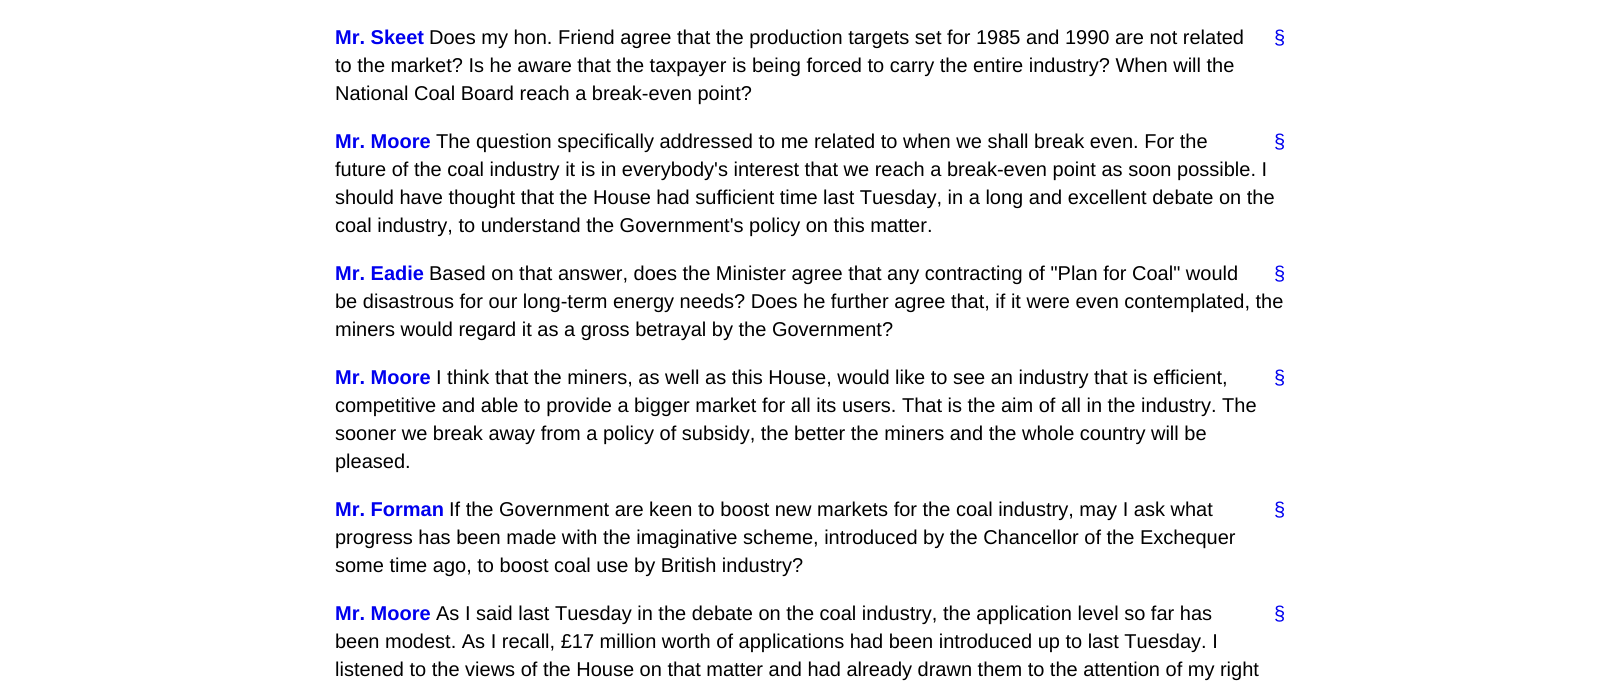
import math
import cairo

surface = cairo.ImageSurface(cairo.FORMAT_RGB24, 1619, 683)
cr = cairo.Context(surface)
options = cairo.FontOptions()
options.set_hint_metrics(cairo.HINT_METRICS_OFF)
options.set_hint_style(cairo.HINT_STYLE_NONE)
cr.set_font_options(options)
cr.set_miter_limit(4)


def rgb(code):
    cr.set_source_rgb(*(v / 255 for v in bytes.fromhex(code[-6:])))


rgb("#ffffff")
cr.paint()
cr.select_font_face("Liberation Sans", cairo.FONT_SLANT_NORMAL, cairo.FONT_WEIGHT_BOLD)
cr.set_font_size(20)
rgb("#0000ee")
cr.move_to(335, 44)
cr.show_text("Mr. Skeet")
cr.select_font_face("Liberation Sans")
rgb("#000000")
cr.move_to(429, 44)
cr.show_text("Does my hon. Friend agree that the production targets set for 1985 and 1990 are not related")
rgb("#0000ee")
cr.move_to(1274, 44)
cr.show_text("§")
rgb("#000000")
cr.move_to(335, 72)
cr.show_text("to the market? Is he aware that the taxpayer is being forced to carry the entire industry? When will the")
cr.move_to(335, 100)
cr.show_text("National Coal Board reach a break-even point?")
cr.select_font_face("Liberation Sans", cairo.FONT_SLANT_NORMAL, cairo.FONT_WEIGHT_BOLD)
rgb("#0000ee")
cr.move_to(335, 148)
cr.show_text("Mr. Moore")
cr.select_font_face("Liberation Sans")
rgb("#000000")
cr.move_to(436, 148)
cr.show_text("The question specifically addressed to me related to when we shall break even. For the")
rgb("#0000ee")
cr.move_to(1274, 148)
cr.show_text("§")
rgb("#000000")
for x, y, s in [
    (335, 176, "future of the coal industry it is in everybody's interest that we reach a break-even point as soon possible. I"),
    (335, 204, "should have thought that the House had sufficient time last Tuesday, in a long and excellent debate on the"),
    (335, 232, "coal industry, to understand the Government's policy on this matter."),
]:
    cr.move_to(x, y)
    cr.show_text(s)
cr.select_font_face("Liberation Sans", cairo.FONT_SLANT_NORMAL, cairo.FONT_WEIGHT_BOLD)
rgb("#0000ee")
cr.move_to(335, 280)
cr.show_text("Mr. Eadie")
cr.select_font_face("Liberation Sans")
rgb("#000000")
cr.move_to(429, 280)
cr.show_text("Based on that answer, does the Minister agree that any contracting of \"Plan for Coal\" would")
rgb("#0000ee")
cr.move_to(1274, 280)
cr.show_text("§")
rgb("#000000")
cr.move_to(335, 308)
cr.show_text("be disastrous for our long-term energy needs? Does he further agree that, if it were even contemplated, the")
cr.move_to(335, 336)
cr.show_text("miners would regard it as a gross betrayal by the Government?")
cr.select_font_face("Liberation Sans", cairo.FONT_SLANT_NORMAL, cairo.FONT_WEIGHT_BOLD)
rgb("#0000ee")
cr.move_to(335, 384)
cr.show_text("Mr. Moore")
cr.select_font_face("Liberation Sans")
rgb("#000000")
cr.move_to(436, 384)
cr.show_text("I think that the miners, as well as this House, would like to see an industry that is efficient,")
rgb("#0000ee")
cr.move_to(1274, 384)
cr.show_text("§")
rgb("#000000")
for x, y, s in [
    (335, 412, "competitive and able to provide a bigger market for all its users. That is the aim of all in the industry. The"),
    (335, 440, "sooner we break away from a policy of subsidy, the better the miners and the whole country will be"),
    (335, 468, "pleased."),
]:
    cr.move_to(x, y)
    cr.show_text(s)
cr.select_font_face("Liberation Sans", cairo.FONT_SLANT_NORMAL, cairo.FONT_WEIGHT_BOLD)
rgb("#0000ee")
cr.move_to(335, 516)
cr.show_text("Mr. Forman")
cr.select_font_face("Liberation Sans")
rgb("#000000")
cr.move_to(449, 516)
cr.show_text("If the Government are keen to boost new markets for the coal industry, may I ask what")
rgb("#0000ee")
cr.move_to(1274, 516)
cr.show_text("§")
rgb("#000000")
cr.move_to(335, 544)
cr.show_text("progress has been made with the imaginative scheme, introduced by the Chancellor of the Exchequer")
cr.move_to(335, 572)
cr.show_text("some time ago, to boost coal use by British industry?")
cr.select_font_face("Liberation Sans", cairo.FONT_SLANT_NORMAL, cairo.FONT_WEIGHT_BOLD)
rgb("#0000ee")
cr.move_to(335, 620)
cr.show_text("Mr. Moore")
cr.select_font_face("Liberation Sans")
rgb("#000000")
cr.move_to(436, 620)
cr.show_text("As I said last Tuesday in the debate on the coal industry, the application level so far has")
rgb("#0000ee")
cr.move_to(1274, 620)
cr.show_text("§")
rgb("#000000")
cr.move_to(335, 648)
cr.show_text("been modest. As I recall, £17 million worth of applications had been introduced up to last Tuesday. I")
cr.move_to(335, 676)
cr.show_text("listened to the views of the House on that matter and had already drawn them to the attention of my right")
surface.write_to_png("page.png")
